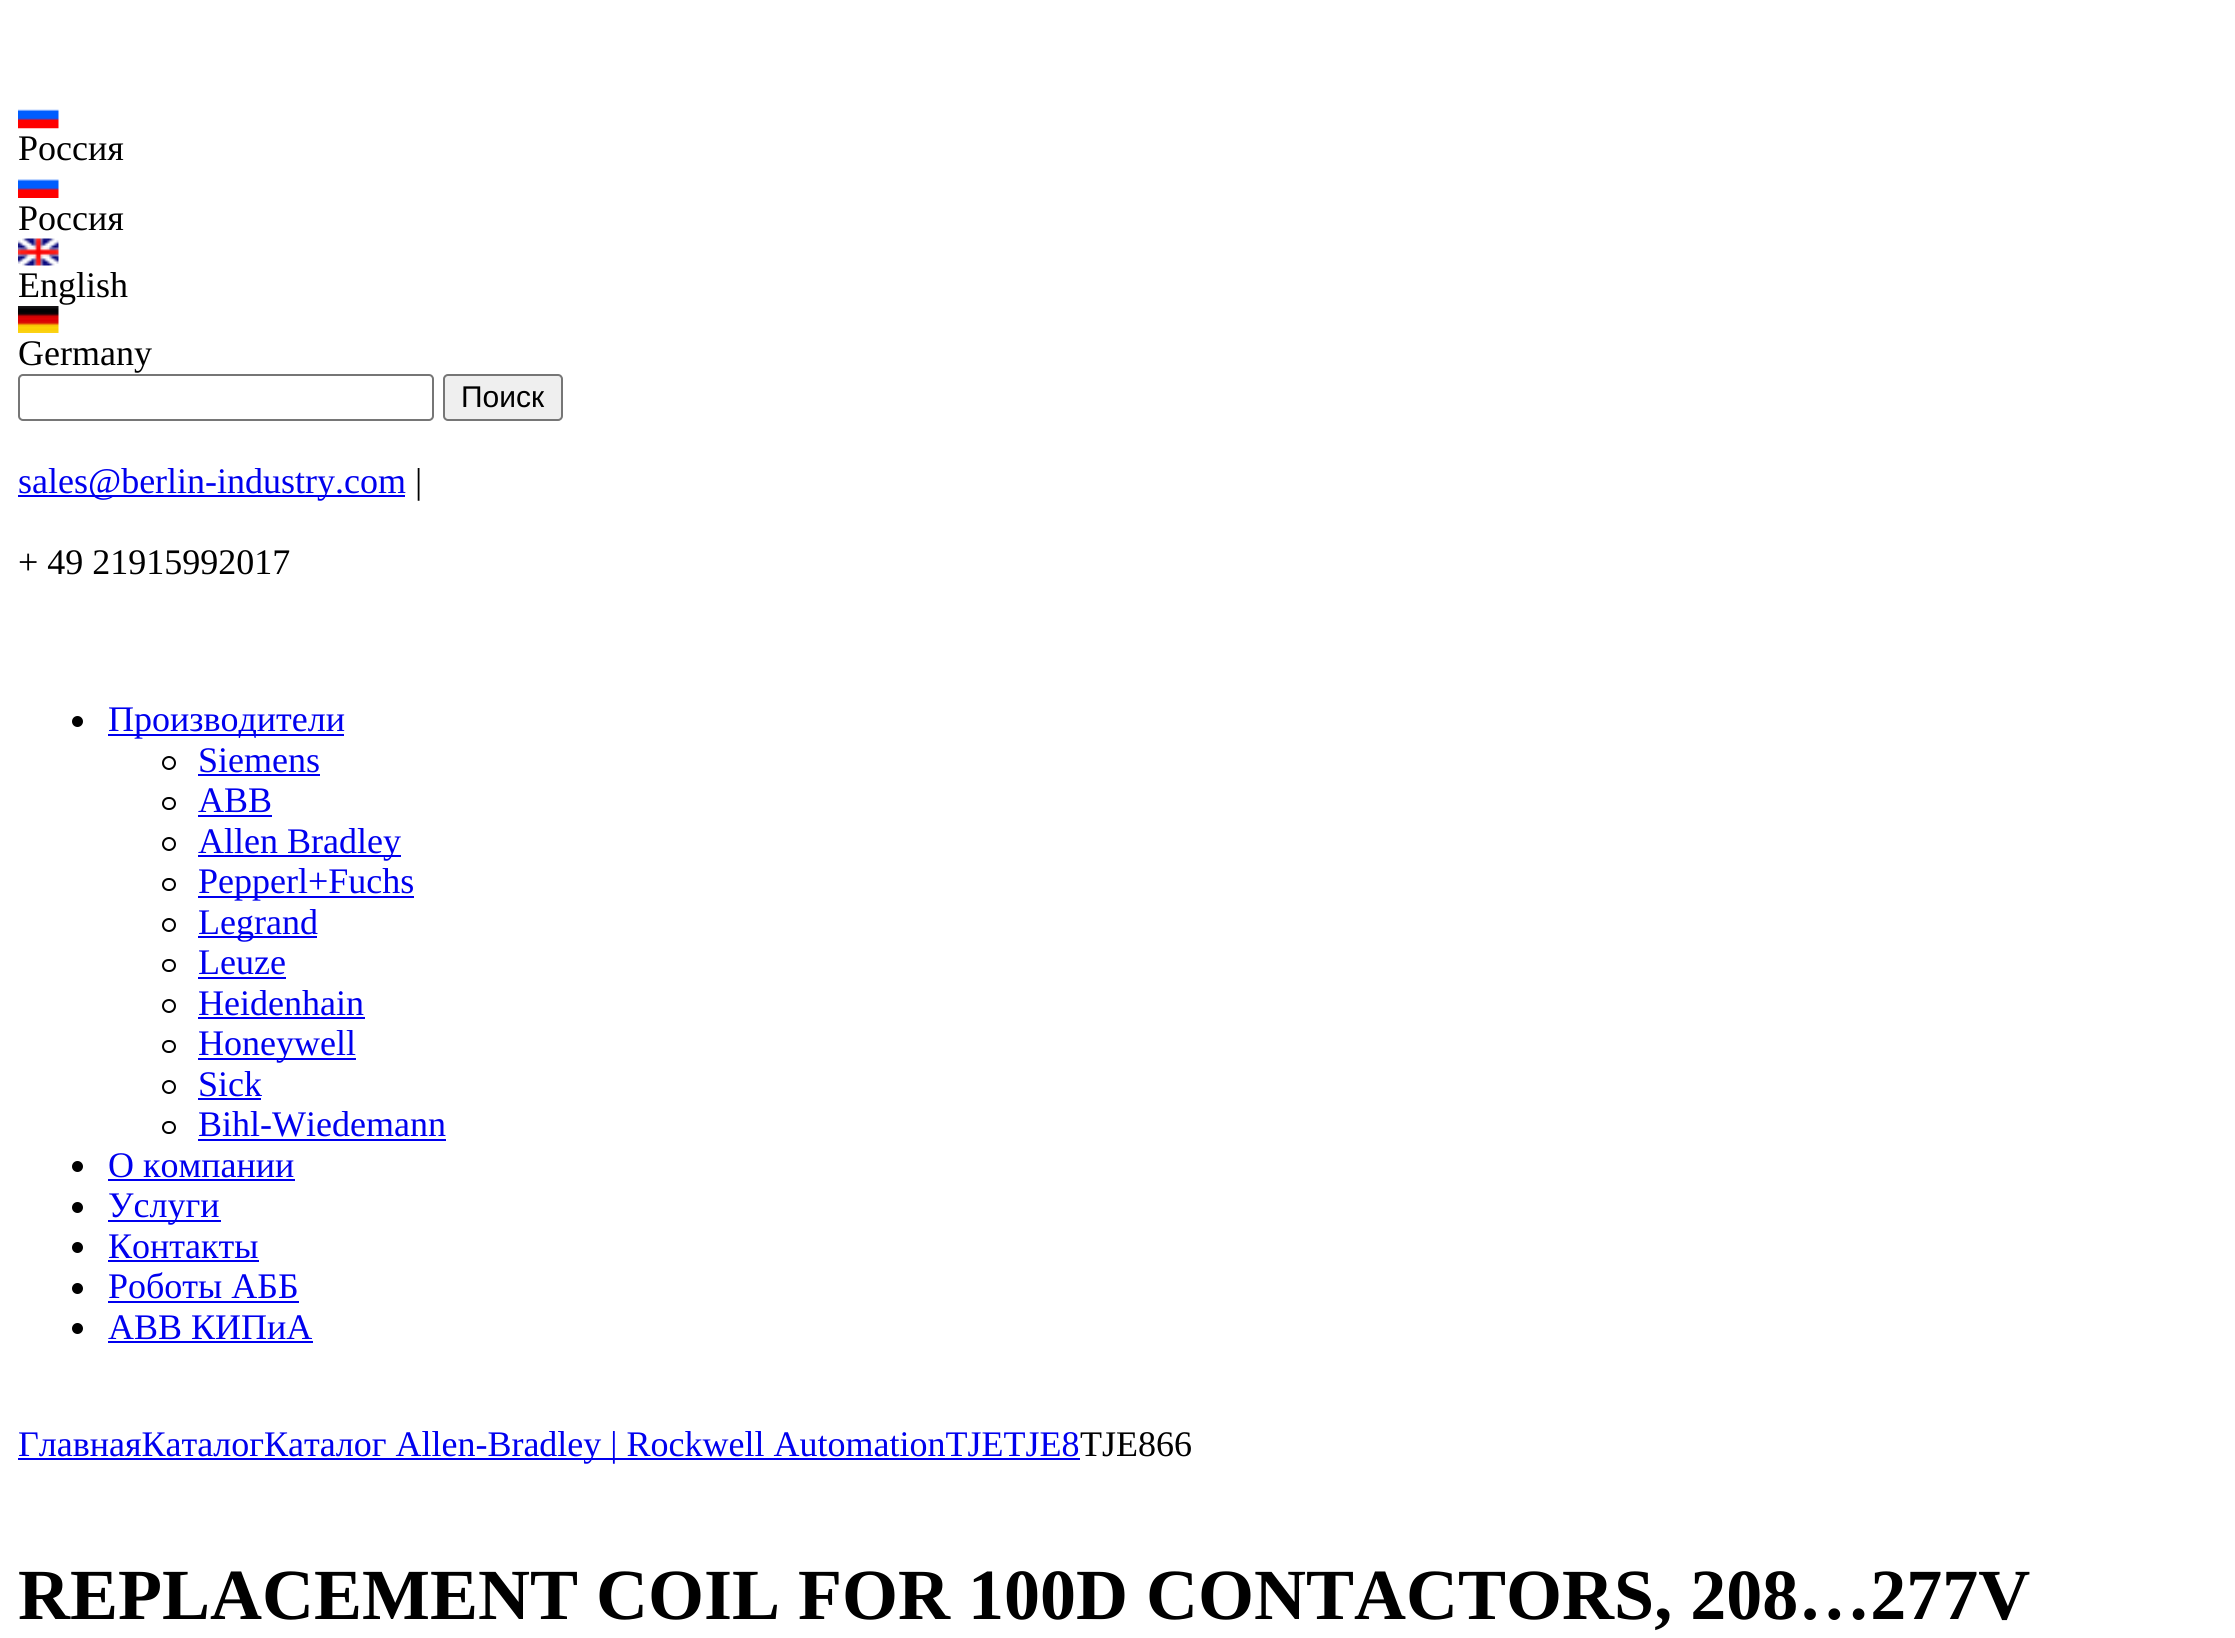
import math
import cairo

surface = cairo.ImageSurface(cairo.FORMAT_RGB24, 2235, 1638)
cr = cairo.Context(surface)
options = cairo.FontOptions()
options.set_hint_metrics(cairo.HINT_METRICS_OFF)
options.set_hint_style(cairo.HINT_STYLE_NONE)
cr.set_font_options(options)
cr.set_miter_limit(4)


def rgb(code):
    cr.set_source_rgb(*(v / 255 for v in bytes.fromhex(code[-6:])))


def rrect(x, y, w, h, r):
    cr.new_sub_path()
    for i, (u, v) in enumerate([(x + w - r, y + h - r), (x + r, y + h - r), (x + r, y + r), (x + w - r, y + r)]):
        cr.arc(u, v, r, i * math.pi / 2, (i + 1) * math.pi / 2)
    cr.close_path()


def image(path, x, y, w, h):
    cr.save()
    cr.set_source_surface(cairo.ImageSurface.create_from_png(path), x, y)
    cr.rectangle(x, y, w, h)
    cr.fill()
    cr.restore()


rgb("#ffffff")
cr.paint()
image("img/1.png", 18, 109, 41, 20)
image("img/2.png", 18, 179, 41, 19)
image("img/3.png", 18, 238, 41, 28)
image("img/4.png", 18, 306, 41, 27)
rrect(19, 375, 414, 45, 4)
rgb("#767676")
cr.stroke()
rgb("#efefef")
rrect(444, 375, 118, 45, 4)
cr.fill_preserve()
rgb("#767676")
cr.stroke()
rgb("#0000ee")
cr.rectangle(18, 495, 387, 2)
cr.fill()
rgb("#000000")
cr.arc(77.5, 721.5, 5.5, 0, 2 * math.pi)
cr.fill()
rgb("#0000ee")
cr.rectangle(108, 734, 236, 2)
cr.fill()
cr.arc(169, 763, 6, 0, 2 * math.pi)
rgb("#000000")
cr.stroke()
rgb("#0000ee")
cr.rectangle(198, 774, 122, 2)
cr.fill()
rrect(163, 798, 12, 11, 5.5)
rgb("#000000")
cr.stroke()
rgb("#0000ee")
cr.rectangle(198, 815, 74, 2)
cr.fill()
cr.arc(169, 844, 6, 0, 2 * math.pi)
rgb("#000000")
cr.stroke()
rgb("#0000ee")
cr.rectangle(198, 855, 203, 2)
cr.fill()
rrect(163, 879, 12, 11, 5.5)
rgb("#000000")
cr.stroke()
rgb("#0000ee")
cr.rectangle(198, 896, 216, 2)
cr.fill()
cr.arc(169, 925, 6, 0, 2 * math.pi)
rgb("#000000")
cr.stroke()
rgb("#0000ee")
cr.rectangle(198, 936, 119, 2)
cr.fill()
rrect(163, 960, 12, 11, 5.5)
rgb("#000000")
cr.stroke()
rgb("#0000ee")
cr.rectangle(198, 977, 88, 2)
cr.fill()
cr.arc(169, 1006, 6, 0, 2 * math.pi)
rgb("#000000")
cr.stroke()
rgb("#0000ee")
cr.rectangle(198, 1017, 167, 2)
cr.fill()
rrect(163, 1041, 12, 11, 5.5)
rgb("#000000")
cr.stroke()
rgb("#0000ee")
cr.rectangle(198, 1058, 158, 2)
cr.fill()
cr.arc(169, 1087, 6, 0, 2 * math.pi)
rgb("#000000")
cr.stroke()
rgb("#0000ee")
cr.rectangle(198, 1098, 63, 2)
cr.fill()
rrect(163, 1122, 12, 11, 5.5)
rgb("#000000")
cr.stroke()
rgb("#0000ee")
cr.rectangle(198, 1139, 248, 2)
cr.fill()
rgb("#000000")
cr.arc(77.5, 1166.5, 5.5, 0, 2 * math.pi)
cr.fill()
rgb("#0000ee")
cr.rectangle(108, 1179, 187, 2)
cr.fill()
rgb("#000000")
cr.arc(77.5, 1207.5, 5.5, 0, 2 * math.pi)
cr.fill()
rgb("#0000ee")
cr.rectangle(108, 1220, 113, 2)
cr.fill()
rgb("#000000")
cr.arc(77.5, 1247.5, 5.5, 0, 2 * math.pi)
cr.fill()
rgb("#0000ee")
cr.rectangle(108, 1260, 151, 2)
cr.fill()
rgb("#000000")
cr.arc(77.5, 1288.5, 5.5, 0, 2 * math.pi)
cr.fill()
rgb("#0000ee")
cr.rectangle(108, 1301, 191, 2)
cr.fill()
rgb("#000000")
cr.arc(77.5, 1328.5, 5.5, 0, 2 * math.pi)
cr.fill()
rgb("#0000ee")
cr.rectangle(108, 1341, 205, 2)
cr.fill()
cr.rectangle(18, 1458, 1062, 2)
cr.fill()
cr.select_font_face("Liberation Serif")
cr.set_font_size(36)
rgb("#000000")
for x, y, s in [
    (18, 160, "Россия"),
    (18, 230, "Россия"),
    (18, 297, "English"),
    (18, 365, "Germany"),
]:
    cr.move_to(x, y)
    cr.show_text(s)
cr.select_font_face("Liberation Sans")
cr.set_font_size(30)
cr.move_to(461, 407)
cr.show_text("Поиск")
cr.select_font_face("Liberation Serif")
cr.set_font_size(36)
rgb("#0000ee")
cr.move_to(18, 493)
cr.show_text("sales@berlin-industry.com")
rgb("#000000")
cr.move_to(415, 493)
cr.show_text("|")
cr.move_to(18, 574)
cr.show_text("+ 49 21915992017")
rgb("#0000ee")
for x, y, s in [
    (108, 731, "Производители"),
    (198, 772, "Siemens"),
    (198, 812, "ABB"),
    (198, 853, "Allen Bradley"),
    (198, 893, "Pepperl+Fuchs"),
    (198, 934, "Legrand"),
    (198, 974, "Leuze"),
    (198, 1015, "Heidenhain"),
    (198, 1055, "Honeywell"),
    (198, 1096, "Sick"),
    (198, 1136, "Bihl-Wiedemann"),
    (108, 1177, "О компании"),
    (108, 1217, "Услуги"),
    (108, 1258, "Контакты"),
    (108, 1298, "Роботы АББ"),
    (108, 1339, "ABB КИПиА"),
    (18, 1456, "ГлавнаяКаталогКаталог Allen-Bradley | Rockwell AutomationTJETJE8"),
]:
    cr.move_to(x, y)
    cr.show_text(s)
rgb("#000000")
cr.move_to(1080, 1456)
cr.show_text("TJE866")
cr.select_font_face("Liberation Serif", cairo.FONT_SLANT_NORMAL, cairo.FONT_WEIGHT_BOLD)
cr.set_font_size(72)
cr.move_to(18, 1619)
cr.show_text("REPLACEMENT COIL FOR 100D CONTACTORS, 208…277V")
surface.write_to_png("page.png")
